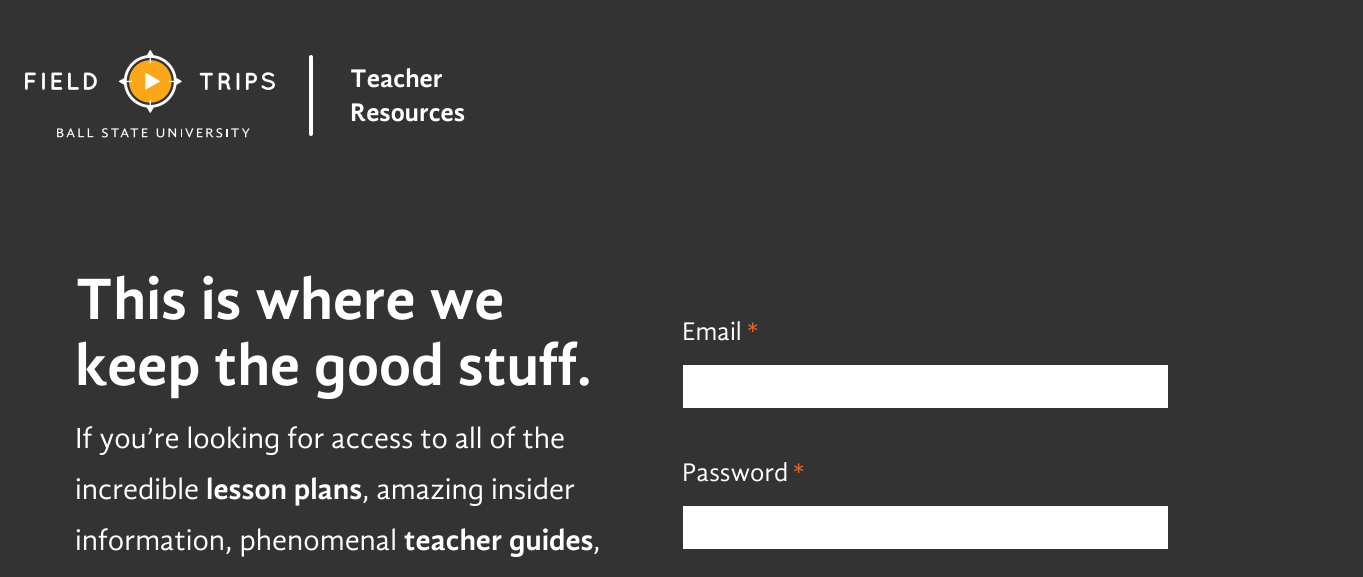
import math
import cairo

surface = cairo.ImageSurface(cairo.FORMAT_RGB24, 1363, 577)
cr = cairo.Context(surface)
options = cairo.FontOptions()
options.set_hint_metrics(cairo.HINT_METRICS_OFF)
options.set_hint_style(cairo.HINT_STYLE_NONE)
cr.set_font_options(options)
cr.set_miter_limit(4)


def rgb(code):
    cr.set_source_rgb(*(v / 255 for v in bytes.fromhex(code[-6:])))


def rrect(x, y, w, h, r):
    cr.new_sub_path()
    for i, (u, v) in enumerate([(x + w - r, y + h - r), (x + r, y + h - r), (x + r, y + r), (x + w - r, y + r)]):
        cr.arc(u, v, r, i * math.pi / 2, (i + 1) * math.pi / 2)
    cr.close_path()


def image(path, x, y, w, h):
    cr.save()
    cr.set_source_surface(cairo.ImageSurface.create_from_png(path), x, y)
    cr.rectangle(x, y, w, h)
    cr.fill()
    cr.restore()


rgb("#333333")
cr.paint()
image("img/1.png", 25, 50, 250, 88)
rgb("#ffffff")
rrect(309, 55, 4, 81, 2)
cr.fill()
cr.rectangle(683, 365, 485, 43)
cr.fill()
cr.rectangle(683, 506, 485, 43)
cr.fill()
cr.select_font_face("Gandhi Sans", cairo.FONT_SLANT_NORMAL, cairo.FONT_WEIGHT_BOLD)
cr.set_font_size(26.25)
cr.move_to(350, 87)
cr.show_text("Teacher")
cr.move_to(350, 121)
cr.show_text("Resources")
cr.set_font_size(60)
cr.move_to(75, 319)
cr.show_text("This is where we")
cr.move_to(75, 385)
cr.show_text("keep the good stuff.")
cr.select_font_face("Gandhi Sans")
cr.set_font_size(30)
cr.move_to(75, 448)
cr.show_text("If you’re looking for access to all of the")
cr.move_to(75, 499)
cr.show_text("incredible")
cr.select_font_face("Gandhi Sans", cairo.FONT_SLANT_NORMAL, cairo.FONT_WEIGHT_BOLD)
cr.move_to(206, 499)
cr.show_text("lesson plans")
cr.select_font_face("Gandhi Sans")
cr.move_to(362, 499)
cr.show_text(", amazing insider")
cr.move_to(75, 550)
cr.show_text("information, phenomenal")
cr.select_font_face("Gandhi Sans", cairo.FONT_SLANT_NORMAL, cairo.FONT_WEIGHT_BOLD)
cr.move_to(404, 550)
cr.show_text("teacher guides")
cr.select_font_face("Gandhi Sans")
cr.move_to(593, 550)
cr.show_text(",")
cr.set_font_size(26.25)
cr.move_to(682, 340)
cr.show_text("Email")
rgb("#e9662a")
cr.move_to(747, 340)
cr.show_text("*")
rgb("#ffffff")
cr.move_to(682, 481)
cr.show_text("Password")
rgb("#e9662a")
cr.move_to(793, 481)
cr.show_text("*")
surface.write_to_png("page.png")
